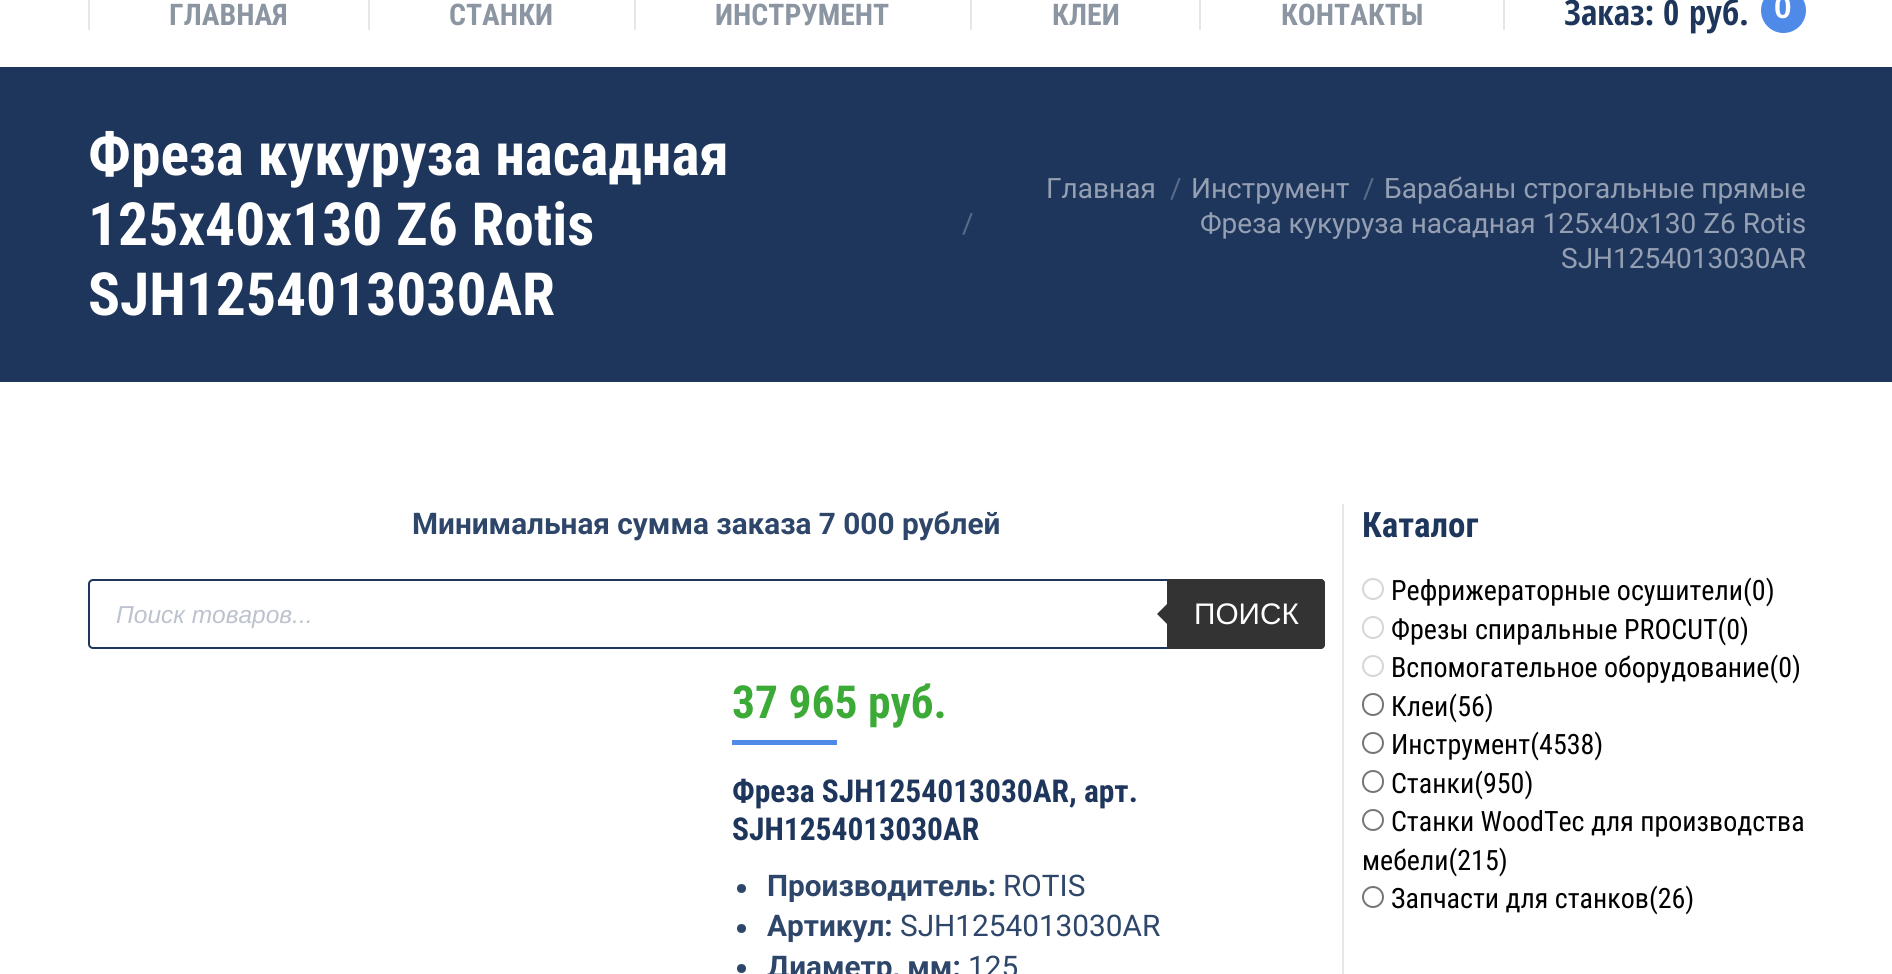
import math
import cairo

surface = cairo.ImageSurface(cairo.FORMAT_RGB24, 1892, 974)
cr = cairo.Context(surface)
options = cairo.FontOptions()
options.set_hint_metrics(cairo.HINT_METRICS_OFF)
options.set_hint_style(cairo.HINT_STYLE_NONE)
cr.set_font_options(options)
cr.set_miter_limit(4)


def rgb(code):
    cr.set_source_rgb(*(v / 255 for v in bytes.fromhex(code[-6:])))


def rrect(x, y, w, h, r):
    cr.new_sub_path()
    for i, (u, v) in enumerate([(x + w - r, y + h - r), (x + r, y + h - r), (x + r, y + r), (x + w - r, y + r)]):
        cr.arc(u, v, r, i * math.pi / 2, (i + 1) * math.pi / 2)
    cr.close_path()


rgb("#ffffff")
cr.paint()
for x, y, w, h, color in [
    (88, 0, 2, 30, "#e7e7e7"),
    (368, 0, 2, 30, "#e7e7e7"),
    (634, 0, 2, 30, "#e7e7e7"),
    (970, 0, 2, 30, "#e7e7e7"),
    (1199, 0, 2, 30, "#e7e7e7"),
    (1503, 0, 2, 30, "#e7e7e7"),
]:
    rgb(color)
    cr.rectangle(x, y, w, h)
    cr.fill()
rgb("#4f8ae8")
cr.arc(1783.5, 10.5, 22.5, 0, 2 * math.pi)
cr.fill()
rgb("#1f365c")
cr.rectangle(0, 67, 1892, 315)
cr.fill()
rrect(89, 580, 1235, 68, 4)
cr.stroke()
rgb("#333333")
cr.new_path()
cr.move_to(1167, 579)
cr.line_to(1321, 579)
cr.curve_to(1323, 579, 1325, 581, 1325, 583)
cr.line_to(1325, 645)
cr.curve_to(1325, 647, 1323, 649, 1321, 649)
cr.line_to(1167, 649)
cr.close_path()
cr.fill()
cr.new_path()
cr.move_to(1171, 600)
cr.line_to(1171, 628)
cr.line_to(1157, 614)
cr.close_path()
cr.fill()
rgb("#4f8ae8")
cr.rectangle(732, 740, 105, 5)
cr.fill()
rgb("#2d4669")
cr.arc(741.5, 888.5, 4.5, 0, 2 * math.pi)
cr.fill()
cr.arc(741.5, 928.5, 4.5, 0, 2 * math.pi)
cr.fill()
cr.arc(741.5, 968.5, 4.5, 0, 2 * math.pi)
cr.fill()
rgb("#e7e7e7")
cr.rectangle(1342, 504, 2, 470)
cr.fill()
cr.arc(1373, 589, 10, 0, 2 * math.pi)
rgb("#d6d6d6")
cr.stroke()
rrect(1363, 617, 20, 21, 10)
cr.stroke()
cr.arc(1373, 666, 10, 0, 2 * math.pi)
cr.stroke()
rrect(1363, 694, 20, 21, 10)
rgb("#767676")
cr.stroke()
cr.arc(1373, 743, 10, 0, 2 * math.pi)
cr.stroke()
rrect(1363, 771, 20, 21, 10)
cr.stroke()
cr.arc(1373, 820, 10, 0, 2 * math.pi)
cr.stroke()
cr.arc(1373, 897, 10, 0, 2 * math.pi)
cr.stroke()
cr.select_font_face("Roboto Condensed", cairo.FONT_SLANT_NORMAL, cairo.FONT_WEIGHT_BOLD)
cr.set_font_size(29.75)
rgb("#8c95a2")
for x, y, s in [
    (169, 25, "ГЛАВНАЯ"),
    (449, 25, "СТАНКИ"),
    (715, 25, "ИНСТРУМЕНТ"),
    (1052, 25, "КЛЕИ"),
    (1281, 25, "КОНТАКТЫ"),
]:
    cr.move_to(x, y)
    cr.show_text(s)
cr.select_font_face("Open Sans Condensed", cairo.FONT_SLANT_NORMAL, cairo.FONT_WEIGHT_BOLD)
cr.set_font_size(35)
rgb("#1f365c")
for x, y, s in [
    (1564, 25, "Заказ:"),
    (1663, 25, "0"),
    (1689, 25, "руб."),
]:
    cr.move_to(x, y)
    cr.show_text(s)
cr.select_font_face("Liberation Sans", cairo.FONT_SLANT_NORMAL, cairo.FONT_WEIGHT_BOLD)
cr.set_font_size(31.5)
rgb("#ffffff")
cr.move_to(1774, 18)
cr.show_text("0")
cr.select_font_face("Roboto Condensed", cairo.FONT_SLANT_NORMAL, cairo.FONT_WEIGHT_BOLD)
cr.set_font_size(59.5)
for x, y, s in [
    (88, 175, "Фреза кукуруза насадная"),
    (88, 245, "125x40x130 Z6 Rotis"),
    (88, 315, "SJH1254013030AR"),
]:
    cr.move_to(x, y)
    cr.show_text(s)
cr.select_font_face("Roboto")
cr.set_font_size(28)
rgb("#949fb2")
cr.move_to(1046, 198)
cr.show_text("Главная")
rgb("#5a6b87")
cr.move_to(1170, 198)
cr.show_text("/")
rgb("#949fb2")
cr.move_to(1191, 198)
cr.show_text("Инструмент")
rgb("#5a6b87")
cr.move_to(1363, 198)
cr.show_text("/")
rgb("#949fb2")
cr.move_to(1384, 198)
cr.show_text("Барабаны строгальные прямые")
rgb("#5a6b87")
cr.move_to(962, 233)
cr.show_text("/")
rgb("#949fb2")
cr.move_to(1200, 233)
cr.show_text("Фреза кукуруза насадная 125x40x130 Z6 Rotis")
cr.move_to(1561, 268)
cr.show_text("SJH1254013030AR")
cr.select_font_face("Roboto", cairo.FONT_SLANT_NORMAL, cairo.FONT_WEIGHT_BOLD)
cr.set_font_size(29.75)
rgb("#2d4669")
cr.move_to(412, 534)
cr.show_text("Минимальная сумма заказа 7 000 рублей")
cr.select_font_face("Liberation Sans", cairo.FONT_SLANT_ITALIC)
cr.set_font_size(24.5)
rgb("#bcc3ce")
cr.move_to(116, 623)
cr.show_text("Поиск товаров...")
cr.select_font_face("Liberation Sans")
cr.set_font_size(29.75)
rgb("#ffffff")
cr.move_to(1194, 624)
cr.show_text("ПОИСК")
cr.select_font_face("Roboto Condensed", cairo.FONT_SLANT_NORMAL, cairo.FONT_WEIGHT_BOLD)
cr.set_font_size(45.5)
rgb("#3caa37")
cr.move_to(732, 718)
cr.show_text("37 965 руб.")
cr.set_font_size(31.5)
rgb("#1f365c")
cr.move_to(732, 802)
cr.show_text("Фреза SJH1254013030AR, арт.")
cr.move_to(732, 840)
cr.show_text("SJH1254013030AR")
cr.select_font_face("Roboto", cairo.FONT_SLANT_NORMAL, cairo.FONT_WEIGHT_BOLD)
cr.set_font_size(29.75)
rgb("#2d4669")
cr.move_to(767, 896)
cr.show_text("Производитель:")
cr.select_font_face("Roboto")
cr.move_to(1003, 896)
cr.show_text("ROTIS")
cr.select_font_face("Roboto", cairo.FONT_SLANT_NORMAL, cairo.FONT_WEIGHT_BOLD)
cr.move_to(767, 936)
cr.show_text("Артикул:")
cr.select_font_face("Roboto")
cr.move_to(900, 936)
cr.show_text("SJH1254013030AR")
cr.select_font_face("Roboto", cairo.FONT_SLANT_NORMAL, cairo.FONT_WEIGHT_BOLD)
cr.move_to(767, 977)
cr.show_text("Диаметр, мм:")
cr.select_font_face("Roboto")
cr.move_to(968, 977)
cr.show_text("125")
cr.select_font_face("Roboto Condensed", cairo.FONT_SLANT_NORMAL, cairo.FONT_WEIGHT_BOLD)
cr.set_font_size(35)
rgb("#1f365c")
cr.move_to(1362, 537)
cr.show_text("Каталог")
cr.select_font_face("Roboto Condensed")
cr.set_font_size(28)
rgb("#000000")
for x, y, s in [
    (1391, 600, "Рефрижераторные осушители(0)"),
    (1391, 639, "Фрезы спиральные PROCUT(0)"),
    (1391, 677, "Вспомогательное оборудование(0)"),
    (1391, 716, "Клеи(56)"),
    (1391, 754, "Инструмент(4538)"),
    (1391, 793, "Станки(950)"),
    (1391, 831, "Станки WoodTec для производства"),
    (1362, 870, "мебели(215)"),
    (1391, 908, "Запчасти для станков(26)"),
]:
    cr.move_to(x, y)
    cr.show_text(s)
surface.write_to_png("page.png")
